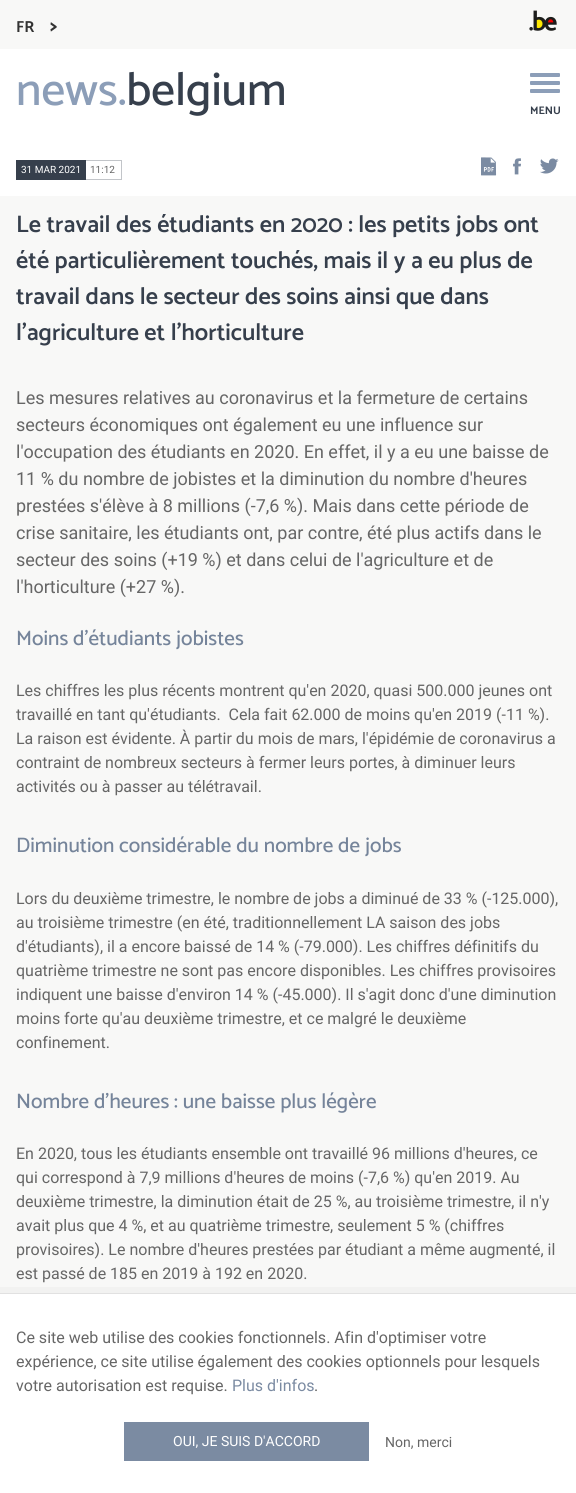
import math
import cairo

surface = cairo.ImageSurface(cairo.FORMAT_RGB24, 576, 1493)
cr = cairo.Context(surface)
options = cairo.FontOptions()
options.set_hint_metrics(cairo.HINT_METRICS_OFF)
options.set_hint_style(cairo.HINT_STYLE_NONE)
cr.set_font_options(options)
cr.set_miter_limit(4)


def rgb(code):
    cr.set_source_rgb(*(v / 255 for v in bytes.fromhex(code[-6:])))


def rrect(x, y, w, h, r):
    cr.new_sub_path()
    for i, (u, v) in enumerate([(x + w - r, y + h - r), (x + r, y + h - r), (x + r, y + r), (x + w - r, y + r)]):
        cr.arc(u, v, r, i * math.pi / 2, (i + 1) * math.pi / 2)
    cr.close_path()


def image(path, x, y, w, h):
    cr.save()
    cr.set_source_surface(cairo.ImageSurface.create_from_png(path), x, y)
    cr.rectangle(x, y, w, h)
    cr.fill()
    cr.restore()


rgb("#f8f8f7")
cr.paint()
image("img/1.png", 529, 10, 28, 21)
rgb("#ffffff")
cr.rectangle(0, 49, 576, 147)
cr.fill()
rgb("#8c9eb8")
rrect(530, 73, 30, 4, 1)
cr.fill()
rrect(530, 81, 30, 4, 1)
cr.fill()
rrect(530, 89, 30, 4, 1)
cr.fill()
for x, y, w, h, color in [
    (16, 160, 70, 20, "#363f4c"),
    (86, 160, 36, 1, "#c2c5c9"),
    (121, 160, 1, 20, "#c2c5c9"),
    (86, 179, 36, 1, "#c2c5c9"),
]:
    rgb(color)
    cr.rectangle(x, y, w, h)
    cr.fill()
image("img/2.png", 481, 157, 16, 19)
image("img/3.png", 513, 158, 8, 17)
image("img/4.png", 540, 158, 19, 16)
rgb("#f2f2f1")
cr.new_path()
cr.move_to(-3, 1287)
cr.line_to(-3, 1493)
cr.line_to(0, 1493)
cr.line_to(0, 1293)
cr.line_to(576, 1293)
cr.line_to(576, 1493)
cr.line_to(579, 1493)
cr.line_to(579, 1287)
cr.close_path()
cr.fill()
for x, y, w, h, color in [
    (0, 1294, 576, 199, "#ffffff"),
    (0, 1293, 576, 1, "#e1e1e1"),
    (124, 1422, 245, 39, "#7b8ba2"),
]:
    rgb(color)
    cr.rectangle(x, y, w, h)
    cr.fill()
cr.select_font_face("Catamaran", cairo.FONT_SLANT_NORMAL, cairo.FONT_WEIGHT_BOLD)
cr.set_font_size(16)
rgb("#333333")
cr.move_to(16, 32)
cr.show_text("FR")
cr.set_font_size(21)
cr.move_to(50, 32)
cr.show_text(">")
cr.select_font_face("Catamaran Medium")
cr.set_font_size(47)
rgb("#8c9eb8")
cr.move_to(16, 105)
cr.show_text("news.")
rgb("#363f4c")
cr.move_to(126, 105)
cr.show_text("belgium")
cr.select_font_face("Catamaran", cairo.FONT_SLANT_NORMAL, cairo.FONT_WEIGHT_BOLD)
cr.set_font_size(11)
cr.move_to(530, 114)
cr.show_text("MENU")
cr.select_font_face("Roboto")
cr.set_font_size(10)
rgb("#ffffff")
cr.move_to(21, 173)
cr.show_text("31 MAR 2021")
rgb("#666666")
cr.move_to(90, 173)
cr.show_text("11:12")
cr.select_font_face("Catamaran SemiBold")
cr.set_font_size(24)
rgb("#363f4c")
for x, y, s in [
    (16, 232, "Le travail des étudiants en 2020 : les petits jobs ont"),
    (16, 268, "été particulièrement touchés, mais il y a eu plus de"),
    (16, 304, "travail dans le secteur des soins ainsi que dans"),
    (16, 340, "l'agriculture et l'horticulture"),
]:
    cr.move_to(x, y)
    cr.show_text(s)
cr.select_font_face("Roboto")
cr.set_font_size(18)
rgb("#666666")
for x, y, s in [
    (16, 404, "Les mesures relatives au coronavirus et la fermeture de certains"),
    (16, 431, "secteurs économiques ont également eu une influence sur"),
    (16, 458, "l'occupation des étudiants en 2020. En effet, il y a eu une baisse de"),
    (16, 485, "11 % du nombre de jobistes et la diminution du nombre d'heures"),
    (16, 512, "prestées s'élève à 8 millions (-7,6 %). Mais dans cette période de"),
    (16, 539, "crise sanitaire, les étudiants ont, par contre, été plus actifs dans le"),
    (16, 566, "secteur des soins (+19 %) et dans celui de l'agriculture et de"),
    (16, 593, "l'horticulture (+27 %)."),
]:
    cr.move_to(x, y)
    cr.show_text(s)
cr.select_font_face("Catamaran Medium")
cr.set_font_size(21)
rgb("#75849a")
cr.move_to(16, 645)
cr.show_text("Moins d'étudiants jobistes")
cr.select_font_face("Roboto")
cr.set_font_size(16)
rgb("#666666")
for x, y, s in [
    (16, 696, "Les chiffres les plus récents montrent qu'en 2020, quasi 500.000 jeunes ont"),
    (16, 720, "travaillé en tant qu'étudiants.  Cela fait 62.000 de moins qu'en 2019 (-11 %)."),
    (16, 744, "La raison est évidente. À partir du mois de mars, l'épidémie de coronavirus a"),
    (16, 768, "contraint de nombreux secteurs à fermer leurs portes, à diminuer leurs"),
    (16, 792, "activités ou à passer au télétravail."),
]:
    cr.move_to(x, y)
    cr.show_text(s)
cr.select_font_face("Catamaran Medium")
cr.set_font_size(21)
rgb("#75849a")
cr.move_to(16, 852)
cr.show_text("Diminution considérable du nombre de jobs")
cr.select_font_face("Roboto")
cr.set_font_size(16)
rgb("#666666")
for x, y, s in [
    (16, 904, "Lors du deuxième trimestre, le nombre de jobs a diminué de 33 % (-125.000),"),
    (16, 928, "au troisième trimestre (en été, traditionnellement LA saison des jobs"),
    (16, 952, "d'étudiants), il a encore baissé de 14 % (-79.000). Les chiffres définitifs du"),
    (16, 976, "quatrième trimestre ne sont pas encore disponibles. Les chiffres provisoires"),
    (16, 1000, "indiquent une baisse d'environ 14 % (-45.000). Il s'agit donc d'une diminution"),
    (16, 1024, "moins forte qu'au deuxième trimestre, et ce malgré le deuxième"),
    (16, 1048, "confinement."),
]:
    cr.move_to(x, y)
    cr.show_text(s)
cr.select_font_face("Catamaran Medium")
cr.set_font_size(21)
rgb("#75849a")
cr.move_to(16, 1108)
cr.show_text("Nombre d'heures : une baisse plus légère")
cr.select_font_face("Roboto")
cr.set_font_size(16)
rgb("#666666")
for x, y, s in [
    (16, 1159, "En 2020, tous les étudiants ensemble ont travaillé 96 millions d'heures, ce"),
    (16, 1183, "qui correspond à 7,9 millions d'heures de moins (-7,6 %) qu'en 2019. Au"),
    (16, 1207, "deuxième trimestre, la diminution était de 25 %, au troisième trimestre, il n'y"),
    (16, 1231, "avait plus que 4 %, et au quatrième trimestre, seulement 5 % (chiffres"),
    (16, 1255, "provisoires). Le nombre d'heures prestées par étudiant a même augmenté, il"),
    (16, 1279, "est passé de 185 en 2019 à 192 en 2020."),
    (16, 1343, "Ce site web utilise des cookies fonctionnels. Afin d'optimiser votre"),
    (16, 1367, "expérience, ce site utilise également des cookies optionnels pour lesquels"),
    (16, 1391, "votre autorisation est requise."),
]:
    cr.move_to(x, y)
    cr.show_text(s)
rgb("#7b8ba2")
cr.move_to(232, 1391)
cr.show_text("Plus d'infos")
rgb("#666666")
cr.move_to(314, 1391)
cr.show_text(".")
cr.set_font_size(14)
rgb("#ffffff")
cr.move_to(173, 1446)
cr.show_text("OUI, JE SUIS D'ACCORD")
rgb("#666666")
cr.move_to(385, 1447)
cr.show_text("Non, merci")
surface.write_to_png("page.png")
